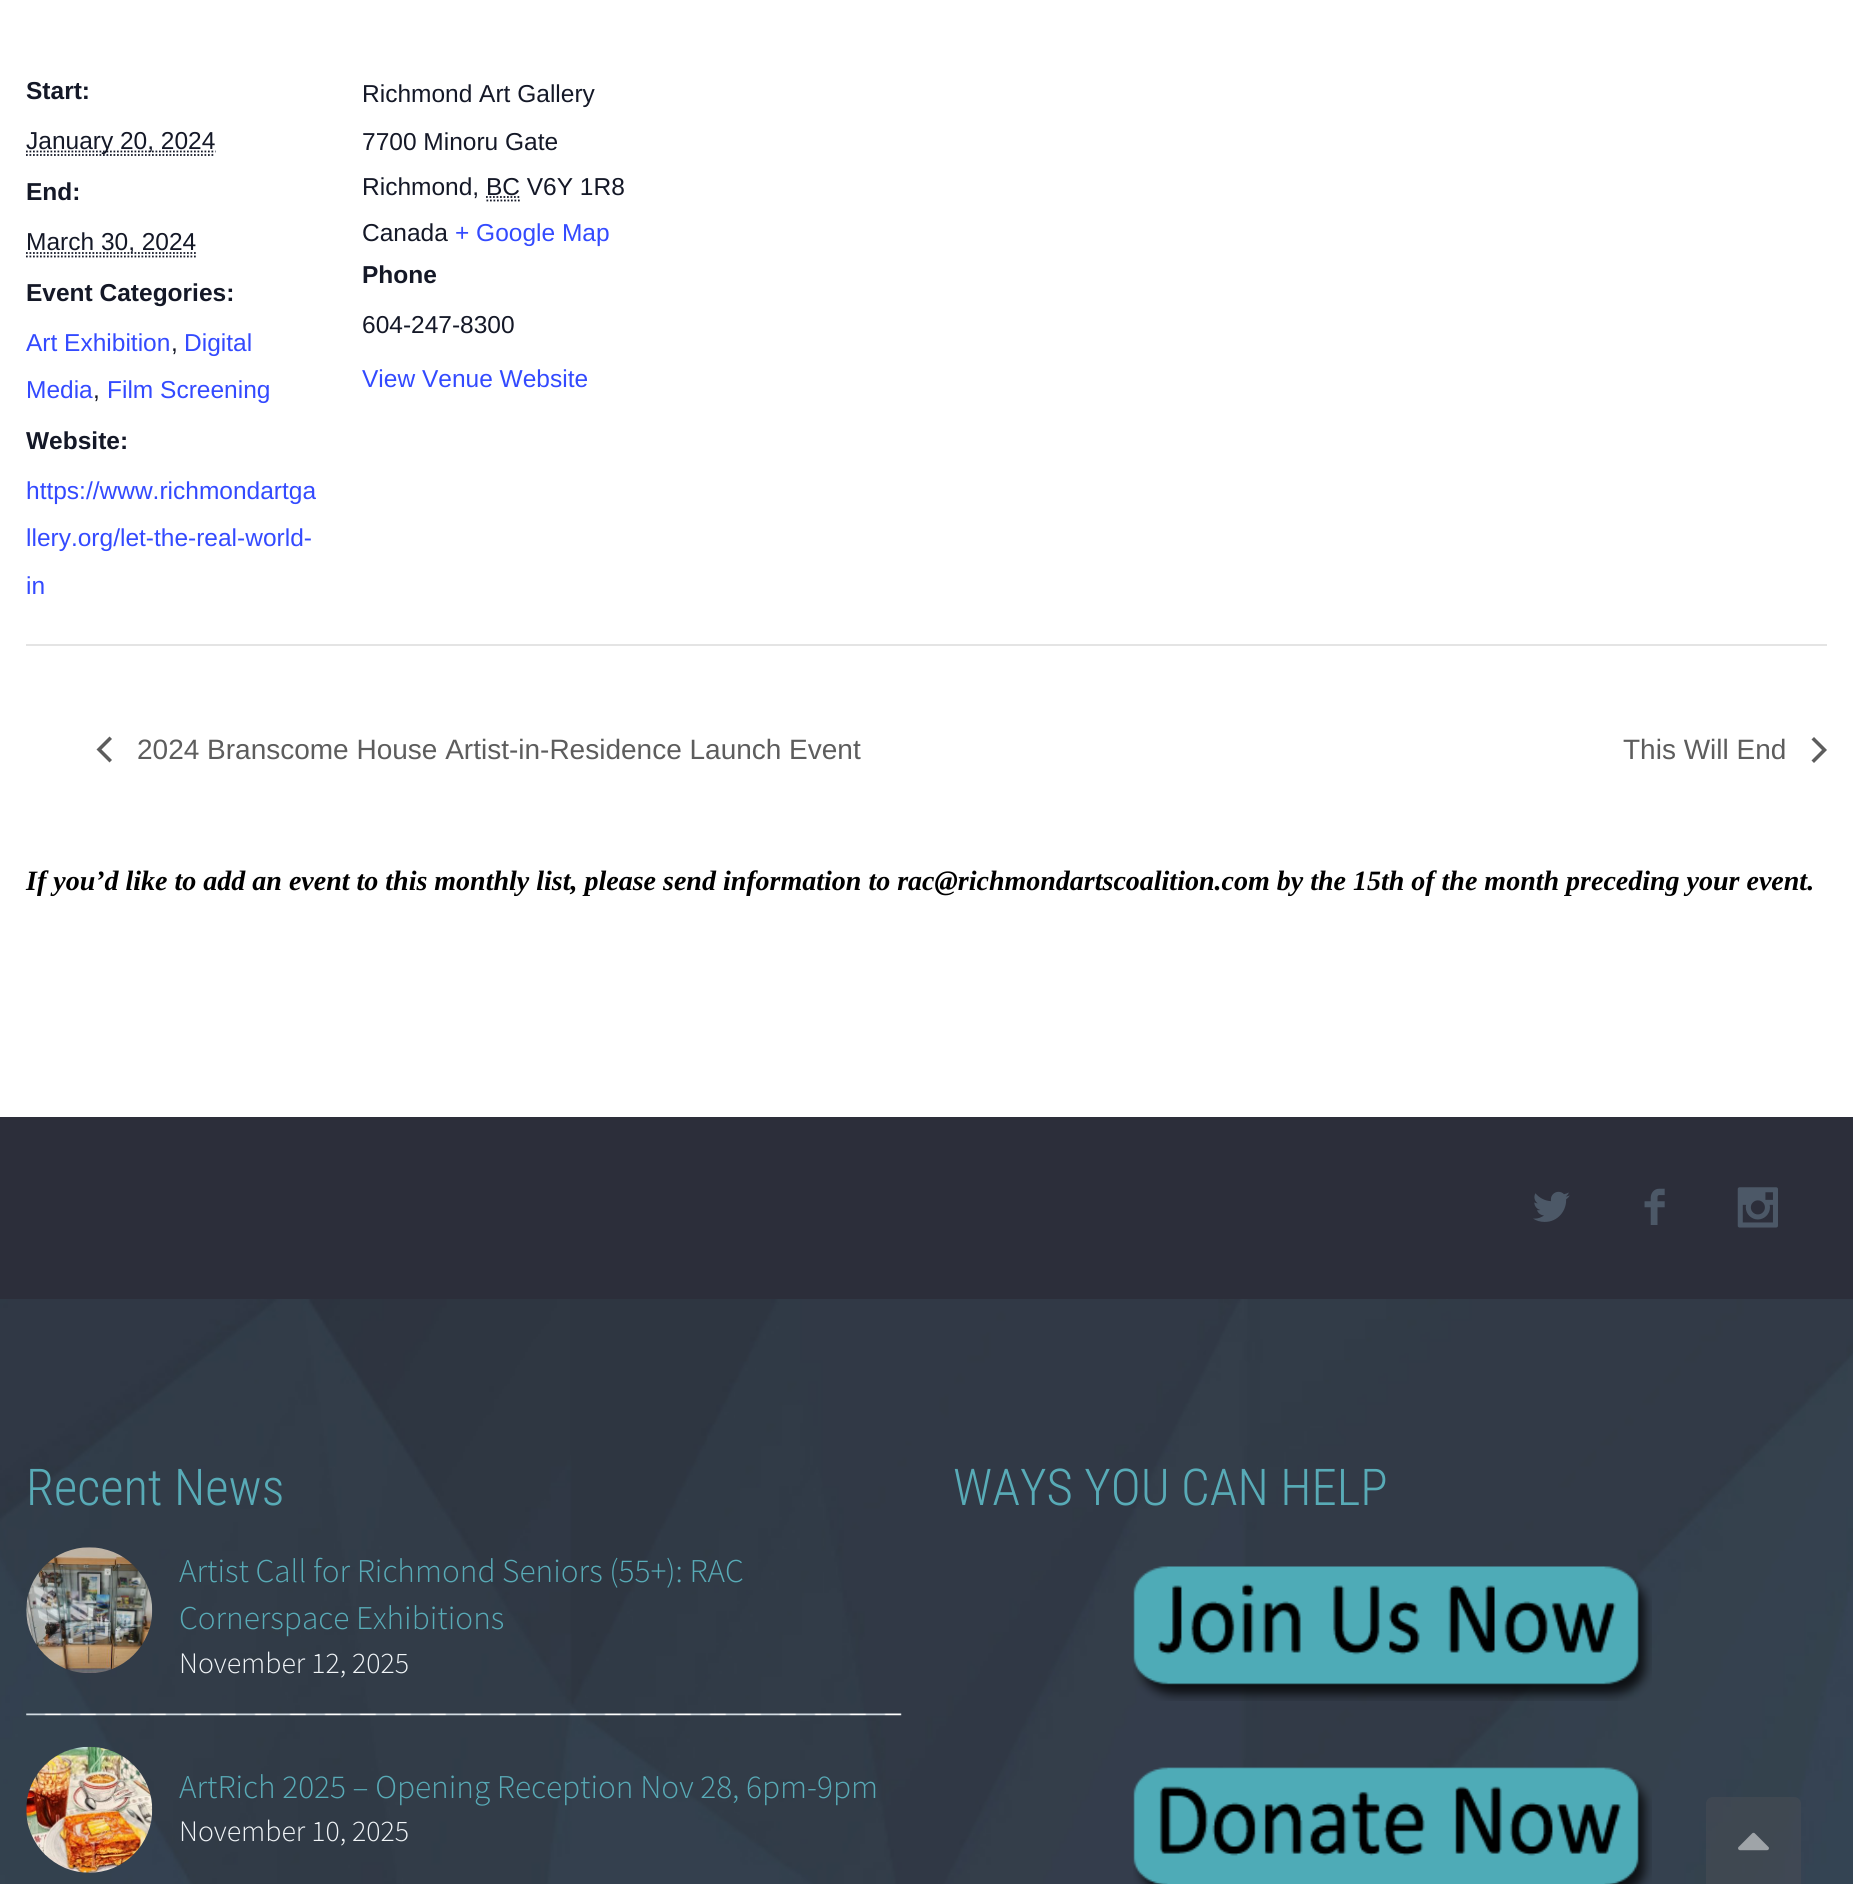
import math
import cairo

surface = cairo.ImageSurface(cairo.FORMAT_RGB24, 1853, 1884)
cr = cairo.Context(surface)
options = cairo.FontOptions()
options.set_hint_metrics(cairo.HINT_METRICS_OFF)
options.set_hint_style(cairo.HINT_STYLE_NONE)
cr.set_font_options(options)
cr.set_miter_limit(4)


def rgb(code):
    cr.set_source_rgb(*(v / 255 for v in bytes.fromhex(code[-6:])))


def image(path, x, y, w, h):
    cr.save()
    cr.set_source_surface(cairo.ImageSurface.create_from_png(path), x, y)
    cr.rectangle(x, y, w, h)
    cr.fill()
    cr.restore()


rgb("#2c2e3a")
cr.paint()
rgb("#ffffff")
cr.rectangle(0, 0, 1853, 1117)
cr.fill()
cr.new_path()
cr.move_to(26, 155)
cr.line_to(215, 155)
rgb("#141827")
cr.set_line_width(1.8)
cr.set_dash([1.75, 1.75])
cr.stroke()
cr.new_path()
cr.move_to(26, 151.5)
cr.line_to(215.5, 151.5)
cr.stroke()
cr.new_path()
cr.move_to(26, 256.5)
cr.line_to(196, 256.5)
cr.stroke()
cr.new_path()
cr.move_to(26, 253)
cr.line_to(196.5, 253)
cr.stroke()
cr.new_path()
cr.move_to(486.5, 200.5)
cr.line_to(520, 200.5)
cr.move_to(486, 197)
cr.line_to(520, 197)
cr.stroke()
rgb("#e4e4e4")
cr.rectangle(26, 644, 1801, 2)
cr.fill()
rgb("#5d5d5d")
cr.new_path()
cr.move_to(112, 760)
cr.line_to(109.5, 762.5)
cr.line_to(96.5, 749.5)
cr.line_to(109.5, 736.5)
cr.line_to(112, 739)
cr.line_to(101.5, 749.5)
cr.close_path()
cr.fill()
cr.new_path()
cr.move_to(1811.5, 739.5)
cr.line_to(1814, 737)
cr.line_to(1827, 750)
cr.line_to(1814, 763)
cr.line_to(1811.5, 760.5)
cr.line_to(1822, 750)
cr.close_path()
cr.fill()
image("img/1.png", 1533, 1191, 37, 31)
image("img/2.png", 1644, 1188, 21, 37)
image("img/3.png", 1737, 1187, 41, 41)
image("img/4.png", 0, 1299, 1853, 585)
image("img/5.png", 26, 1713, 876, 3)
image("img/6.png", 26, 1547, 127, 126)
image("img/7.png", 26, 1746, 127, 127)
image("img/8.png", 1133, 1566, 519, 135)
image("img/9.png", 1133, 1767, 519, 117)
cr.set_source_rgba(0.29, 0.31, 0.337, 0.5)
cr.new_path()
cr.move_to(1713, 1797)
cr.line_to(1794, 1797)
cr.curve_to(1798, 1797, 1801, 1800, 1801, 1804)
cr.line_to(1801, 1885)
cr.line_to(1706, 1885)
cr.line_to(1706, 1804)
cr.curve_to(1706, 1800, 1709, 1797, 1713, 1797)
cr.close_path()
cr.fill()
image("img/10.png", 1738, 1832, 31, 19)
cr.select_font_face("Liberation Sans", cairo.FONT_SLANT_NORMAL, cairo.FONT_WEIGHT_BOLD)
cr.set_font_size(24.5)
rgb("#141827")
cr.move_to(26, 99)
cr.show_text("Start:")
cr.select_font_face("Liberation Sans")
cr.move_to(26, 149)
cr.show_text("January 20, 2024")
cr.select_font_face("Liberation Sans", cairo.FONT_SLANT_NORMAL, cairo.FONT_WEIGHT_BOLD)
cr.move_to(26, 200)
cr.show_text("End:")
cr.select_font_face("Liberation Sans")
cr.move_to(26, 250)
cr.show_text("March 30, 2024")
cr.select_font_face("Liberation Sans", cairo.FONT_SLANT_NORMAL, cairo.FONT_WEIGHT_BOLD)
cr.move_to(26, 301)
cr.show_text("Event Categories:")
cr.select_font_face("Liberation Sans")
rgb("#334aff")
cr.move_to(26, 351)
cr.show_text("Art Exhibition")
rgb("#141827")
cr.move_to(171, 351)
cr.show_text(",")
rgb("#334aff")
cr.move_to(184, 351)
cr.show_text("Digital")
cr.move_to(26, 398)
cr.show_text("Media")
rgb("#141827")
cr.move_to(93, 398)
cr.show_text(",")
rgb("#334aff")
cr.move_to(107, 398)
cr.show_text("Film Screening")
cr.select_font_face("Liberation Sans", cairo.FONT_SLANT_NORMAL, cairo.FONT_WEIGHT_BOLD)
rgb("#141827")
cr.move_to(26, 449)
cr.show_text("Website:")
cr.select_font_face("Liberation Sans")
rgb("#334aff")
for x, y, s in [
    (26, 499, "https://www.richmondartga"),
    (26, 546, "llery.org/let-the-real-world-"),
    (26, 594, "in"),
]:
    cr.move_to(x, y)
    cr.show_text(s)
rgb("#141827")
for x, y, s in [
    (362, 102, "Richmond Art Gallery"),
    (362, 150, "7700 Minoru Gate"),
    (362, 195, "Richmond, BC V6Y 1R8"),
    (362, 241, "Canada"),
]:
    cr.move_to(x, y)
    cr.show_text(s)
rgb("#334aff")
cr.move_to(455, 241)
cr.show_text("+ Google Map")
cr.select_font_face("Liberation Sans", cairo.FONT_SLANT_NORMAL, cairo.FONT_WEIGHT_BOLD)
rgb("#141827")
cr.move_to(362, 283)
cr.show_text("Phone")
cr.select_font_face("Liberation Sans")
cr.move_to(362, 333)
cr.show_text("604-247-8300")
rgb("#334aff")
cr.move_to(362, 387)
cr.show_text("View Venue Website")
cr.set_font_size(28)
rgb("#5d5d5d")
cr.move_to(137, 759)
cr.show_text("2024 Branscome House Artist-in-Residence Launch Event")
cr.move_to(1623, 759)
cr.show_text("This Will End")
cr.select_font_face("Liberation Serif", cairo.FONT_SLANT_ITALIC, cairo.FONT_WEIGHT_BOLD)
rgb("#000000")
cr.move_to(26, 890)
cr.show_text("If you’d like to add an event to this monthly list, please send information to rac@richmondartscoalition.com by the 15th of the month preceding your event.")
cr.select_font_face("Roboto Condensed Light")
cr.set_font_size(50.75)
rgb("#58abb7")
cr.move_to(26, 1505)
cr.show_text("Recent News")
cr.select_font_face("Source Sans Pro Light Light")
cr.set_font_size(33.25)
cr.move_to(179, 1582)
cr.show_text("Artist Call for Richmond Seniors (55+): RAC")
cr.move_to(179, 1629)
cr.show_text("Cornerspace Exhibitions")
cr.set_font_size(29.75)
rgb("#f1f5f8")
cr.move_to(179, 1673)
cr.show_text("November 12, 2025")
cr.set_font_size(33.25)
rgb("#58abb7")
cr.move_to(179, 1798)
cr.show_text("ArtRich 2025 – Opening Reception Nov 28, 6pm-9pm")
cr.set_font_size(29.75)
rgb("#f1f5f8")
cr.move_to(179, 1841)
cr.show_text("November 10, 2025")
cr.select_font_face("Roboto Condensed Light")
cr.set_font_size(50.75)
rgb("#58abb7")
cr.move_to(953, 1505)
cr.show_text("WAYS YOU CAN HELP")
surface.write_to_png("page.png")
